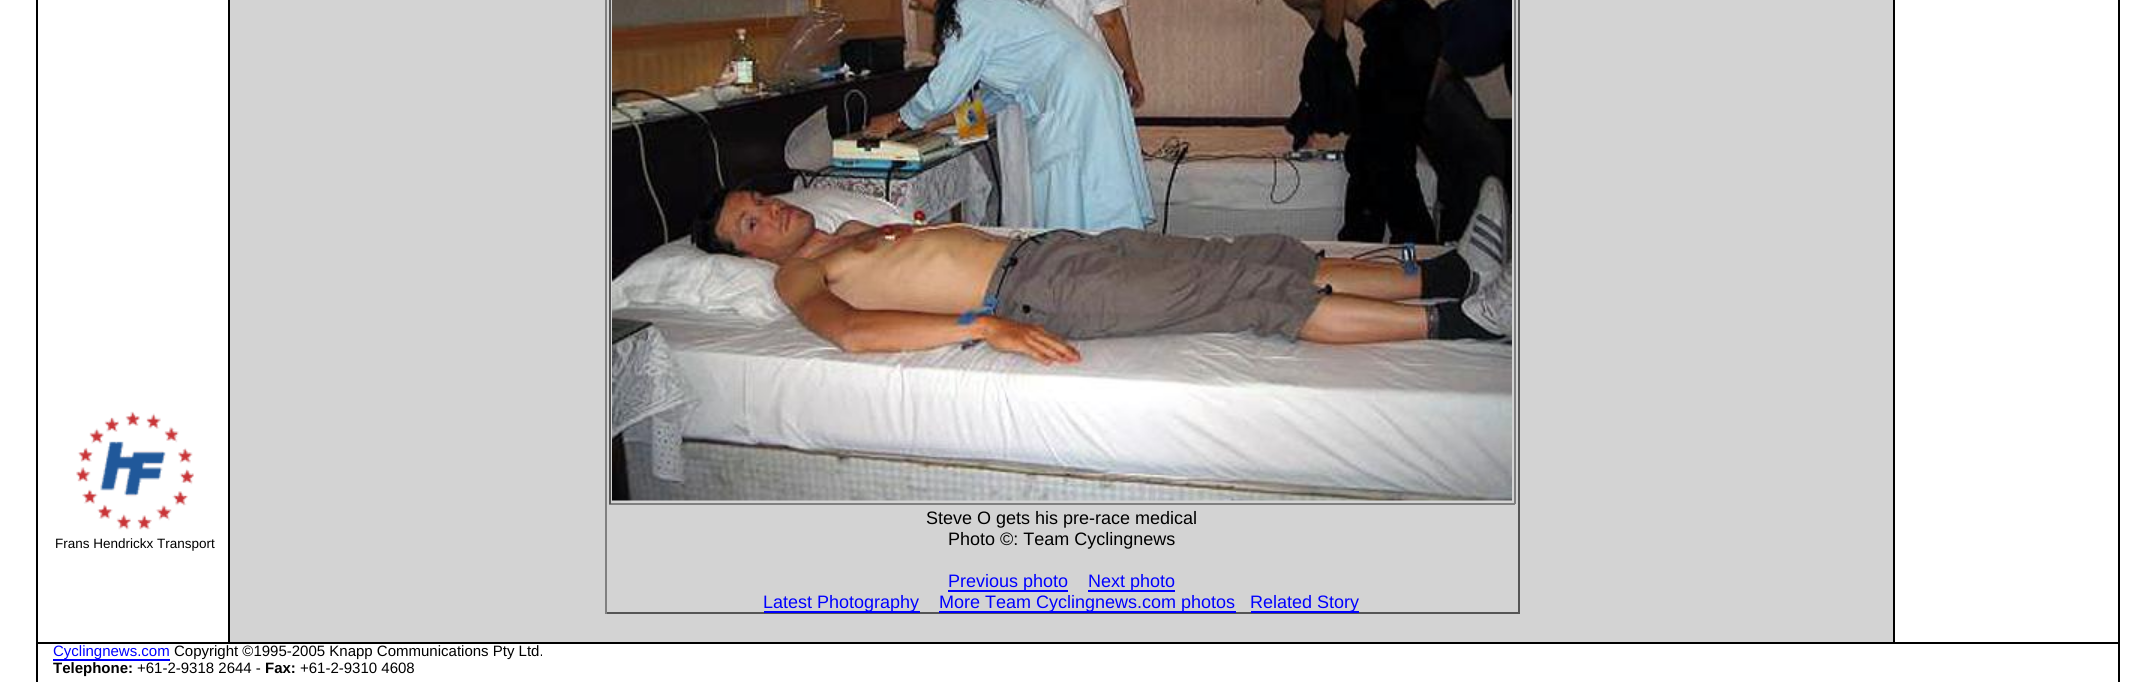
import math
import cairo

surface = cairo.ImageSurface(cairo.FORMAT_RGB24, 2147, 682)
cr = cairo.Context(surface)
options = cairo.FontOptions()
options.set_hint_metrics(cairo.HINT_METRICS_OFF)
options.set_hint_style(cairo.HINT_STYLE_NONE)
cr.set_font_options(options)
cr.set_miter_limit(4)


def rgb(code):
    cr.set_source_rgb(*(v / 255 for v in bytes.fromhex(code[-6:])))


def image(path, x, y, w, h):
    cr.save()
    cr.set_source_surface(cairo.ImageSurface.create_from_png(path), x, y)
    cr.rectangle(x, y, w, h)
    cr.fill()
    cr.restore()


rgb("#ffffff")
cr.paint()
rgb("#000000")
cr.rectangle(36, 0, 2, 642)
cr.fill()
image("img/1.png", 76, 411, 118, 119)
for x, y, w, h, color in [
    (228, 0, 2, 642, "#000000"),
    (230, 0, 1663, 642, "#d3d3d3"),
    (1518, 0, 2, 614, "#555555"),
    (605, 612, 915, 2, "#555555"),
    (605, 0, 2, 614, "#808080"),
    (1514, 0, 2, 504, "#808080"),
    (609, 503, 906, 2, "#808080"),
    (609, 0, 2, 504, "#555555"),
]:
    rgb(color)
    cr.rectangle(x, y, w, h)
    cr.fill()
image("img/2.png", 612, 0, 900, 501)
for x, y, w, h, color in [
    (948, 590, 120, 2, "#0000ff"),
    (1088, 590, 87, 2, "#0000ff"),
    (764, 611, 156, 2, "#0000ff"),
    (939, 611, 297, 2, "#0000ff"),
    (1251, 611, 108, 2, "#0000ff"),
    (1893, 0, 2, 642, "#000000"),
    (2118, 0, 2, 642, "#000000"),
    (36, 642, 2084, 2, "#000000"),
    (36, 644, 2, 38, "#000000"),
    (53, 659, 117, 2, "#0000ff"),
    (2118, 644, 2, 38, "#000000"),
]:
    rgb(color)
    cr.rectangle(x, y, w, h)
    cr.fill()
cr.select_font_face("Liberation Sans")
cr.set_font_size(13.5)
cr.move_to(55, 548)
cr.show_text("Frans Hendrickx Transport")
cr.set_font_size(18)
cr.move_to(926, 524)
cr.show_text("Steve O gets his pre-race medical")
cr.move_to(948, 545)
cr.show_text("Photo ©: Team Cyclingnews")
rgb("#0000ff")
for x, y, s in [
    (948, 587, "Previous photo"),
    (1088, 587, "Next photo"),
    (763, 608, "Latest Photography"),
    (939, 608, "More Team Cyclingnews.com photos"),
    (1250, 608, "Related Story"),
]:
    cr.move_to(x, y)
    cr.show_text(s)
cr.set_font_size(15)
cr.move_to(53, 656)
cr.show_text("Cyclingnews.com")
rgb("#000000")
cr.move_to(174, 656)
cr.show_text("Copyright ©1995-2005 Knapp Communications Pty Ltd.")
cr.select_font_face("Liberation Sans", cairo.FONT_SLANT_NORMAL, cairo.FONT_WEIGHT_BOLD)
cr.move_to(53, 673)
cr.show_text("Telephone:")
cr.select_font_face("Liberation Sans")
cr.move_to(137, 673)
cr.show_text("+61-2-9318 2644 -")
cr.select_font_face("Liberation Sans", cairo.FONT_SLANT_NORMAL, cairo.FONT_WEIGHT_BOLD)
cr.move_to(265, 673)
cr.show_text("Fax:")
cr.select_font_face("Liberation Sans")
cr.move_to(300, 673)
cr.show_text("+61-2-9310 4608")
surface.write_to_png("page.png")
